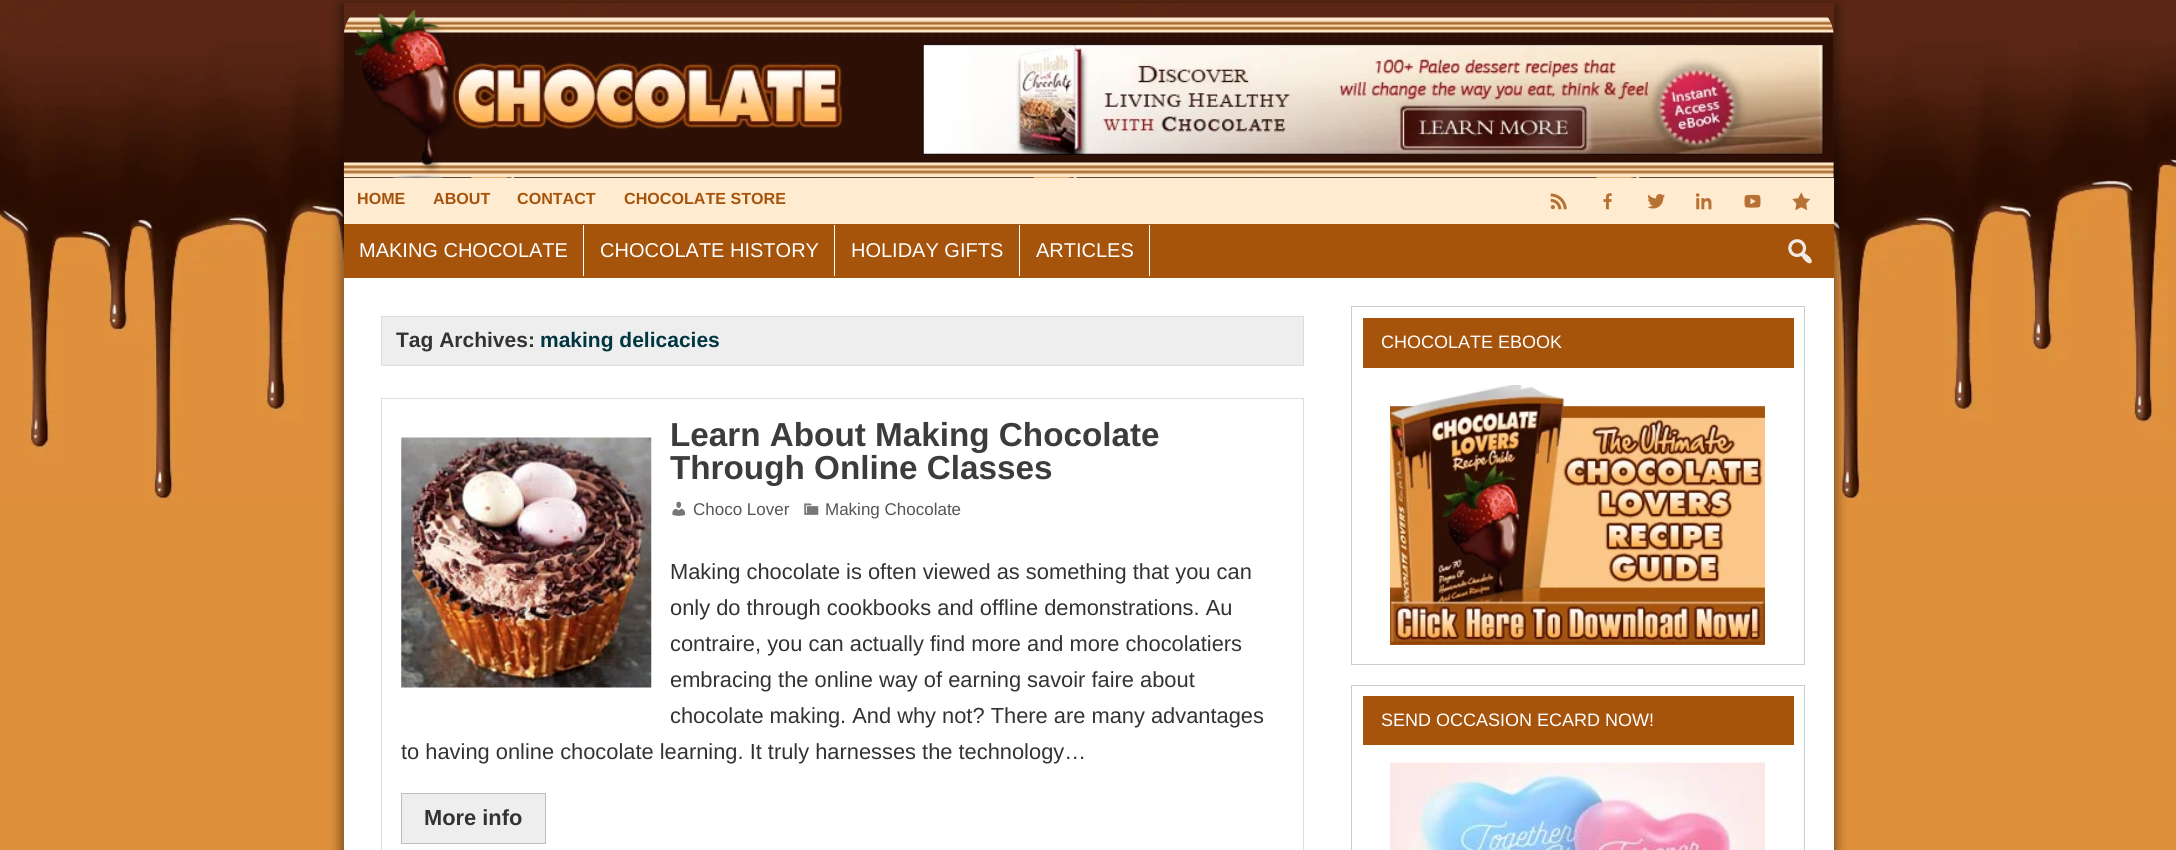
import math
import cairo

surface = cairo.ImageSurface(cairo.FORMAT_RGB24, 2176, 850)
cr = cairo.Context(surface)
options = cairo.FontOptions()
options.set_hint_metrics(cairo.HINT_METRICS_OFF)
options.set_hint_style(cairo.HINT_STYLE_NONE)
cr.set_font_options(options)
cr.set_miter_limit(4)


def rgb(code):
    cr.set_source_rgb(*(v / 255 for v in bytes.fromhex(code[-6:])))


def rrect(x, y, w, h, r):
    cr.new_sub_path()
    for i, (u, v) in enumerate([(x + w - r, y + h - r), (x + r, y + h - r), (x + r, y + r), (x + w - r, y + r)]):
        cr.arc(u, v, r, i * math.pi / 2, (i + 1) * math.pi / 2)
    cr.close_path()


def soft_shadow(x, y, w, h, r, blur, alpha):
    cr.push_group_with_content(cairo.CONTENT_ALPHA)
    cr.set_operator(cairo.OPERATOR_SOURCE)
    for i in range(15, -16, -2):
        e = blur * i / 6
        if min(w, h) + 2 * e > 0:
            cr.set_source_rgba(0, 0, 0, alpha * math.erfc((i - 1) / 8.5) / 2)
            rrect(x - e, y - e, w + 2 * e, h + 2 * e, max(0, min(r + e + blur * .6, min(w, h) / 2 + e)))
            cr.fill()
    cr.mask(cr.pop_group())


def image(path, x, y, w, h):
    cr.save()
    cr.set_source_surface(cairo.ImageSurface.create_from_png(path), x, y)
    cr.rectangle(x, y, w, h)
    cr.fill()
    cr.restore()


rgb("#df903b")
cr.paint()
image("img/1.png", 0, 0, 2176, 500)
cr.save()
cr.set_fill_rule(cairo.FILL_RULE_EVEN_ODD)
cr.new_path()
cr.move_to(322, 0)
cr.line_to(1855, 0)
cr.line_to(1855, 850)
cr.line_to(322, 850)
cr.close_path()
cr.move_to(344, 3)
cr.line_to(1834, 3)
cr.line_to(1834, 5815)
cr.line_to(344, 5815)
cr.close_path()
cr.clip()
rgb("#020202")
soft_shadow(341, 6, 1495, 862, 0, 6, 0.5)
cr.restore()
image("img/2.png", 343, 17, 1491, 161)
image("img/3.png", 355, 10, 488, 168)
image("img/4.png", 922, 43, 902, 112)
rgb("#ffebd0")
cr.rectangle(344, 178, 1490, 46)
cr.fill()
image("img/5.png", 1550, 193, 17, 17)
image("img/6.png", 1603, 193, 9, 17)
image("img/7.png", 1647, 194, 18, 15)
image("img/8.png", 1696, 193, 16, 17)
image("img/9.png", 1744, 194, 17, 14)
image("img/10.png", 1792, 192, 19, 19)
for x, y, w, h, color in [
    (344, 224, 1490, 54, "#a6530c"),
    (583, 225, 1, 51, "#ffffff"),
    (834, 225, 1, 51, "#ffffff"),
    (1019, 225, 1, 51, "#ffffff"),
    (1149, 225, 1, 51, "#ffffff"),
]:
    rgb(color)
    cr.rectangle(x, y, w, h)
    cr.fill()
image("img/11.png", 1788, 239, 24, 25)
cr.rectangle(344, 278, 1490, 572)
cr.fill()
rgb("#eeeeee")
cr.rectangle(381.5, 316.5, 922, 49)
cr.fill_preserve()
rgb("#dddddd")
cr.set_line_width(1)
cr.stroke()
cr.rectangle(381.5, 398.5, 922, 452)
cr.stroke()
image("img/12.png", 401, 437, 251, 251)
image("img/13.png", 672, 501, 14, 15)
image("img/14.png", 804, 503, 15, 12)
rgb("#eeeeee")
cr.rectangle(401.5, 793.5, 144, 50)
cr.fill_preserve()
rgb("#bebebe")
cr.stroke()
cr.rectangle(1351.5, 306.5, 453, 358)
rgb("#cccccc")
cr.stroke()
rgb("#a6530c")
cr.rectangle(1363, 318, 431, 50)
cr.fill()
image("img/15.png", 1390, 385, 375, 260)
cr.rectangle(1351.5, 685.5, 453, 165)
rgb("#cccccc")
cr.stroke()
rgb("#a6530c")
cr.rectangle(1363, 696, 431, 49)
cr.fill()
image("img/16.png", 1390, 762, 375, 88)
cr.select_font_face("Liberation Sans", cairo.FONT_SLANT_NORMAL, cairo.FONT_WEIGHT_BOLD)
cr.set_font_size(16.1)
for x, y, s in [
    (357, 204, "HOME"),
    (433, 204, "ABOUT"),
    (517, 204, "CONTACT"),
    (624, 204, "CHOCOLATE STORE"),
]:
    cr.move_to(x, y)
    cr.show_text(s)
cr.select_font_face("Liberation Sans")
cr.set_font_size(20)
rgb("#ffffff")
for x, y, s in [
    (359, 257, "MAKING CHOCOLATE"),
    (600, 257, "CHOCOLATE HISTORY"),
    (851, 257, "HOLIDAY GIFTS"),
    (1036, 257, "ARTICLES"),
]:
    cr.move_to(x, y)
    cr.show_text(s)
cr.select_font_face("Liberation Sans", cairo.FONT_SLANT_NORMAL, cairo.FONT_WEIGHT_BOLD)
cr.set_font_size(21)
rgb("#333333")
cr.move_to(396, 347)
cr.show_text("Tag Archives:")
rgb("#003640")
cr.move_to(540, 347)
cr.show_text("making delicacies")
cr.set_font_size(33.25)
rgb("#3c3c3c")
cr.move_to(670, 446)
cr.show_text("Learn About Making Chocolate")
cr.move_to(670, 479)
cr.show_text("Through Online Classes")
cr.select_font_face("Liberation Sans")
cr.set_font_size(17)
rgb("#555555")
cr.move_to(693, 515)
cr.show_text("Choco Lover")
cr.move_to(825, 515)
cr.show_text("Making Chocolate")
cr.set_font_size(21.85)
rgb("#333333")
for x, y, s in [
    (670, 579, "Making chocolate is often viewed as something that you can"),
    (670, 615, "only do through cookbooks and offline demonstrations. Au"),
    (670, 651, "contraire, you can actually find more and more chocolatiers"),
    (670, 687, "embracing the online way of earning savoir faire about"),
    (670, 723, "chocolate making. And why not? There are many advantages"),
    (401, 759, "to having online chocolate learning. It truly harnesses the technology…"),
]:
    cr.move_to(x, y)
    cr.show_text(s)
cr.select_font_face("Liberation Sans", cairo.FONT_SLANT_NORMAL, cairo.FONT_WEIGHT_BOLD)
cr.move_to(424, 825)
cr.show_text("More info")
cr.select_font_face("Liberation Sans")
cr.set_font_size(18)
rgb("#ffffff")
cr.move_to(1381, 348)
cr.show_text("CHOCOLATE EBOOK")
cr.move_to(1381, 726)
cr.show_text("SEND OCCASION ECARD NOW!")
surface.write_to_png("page.png")
